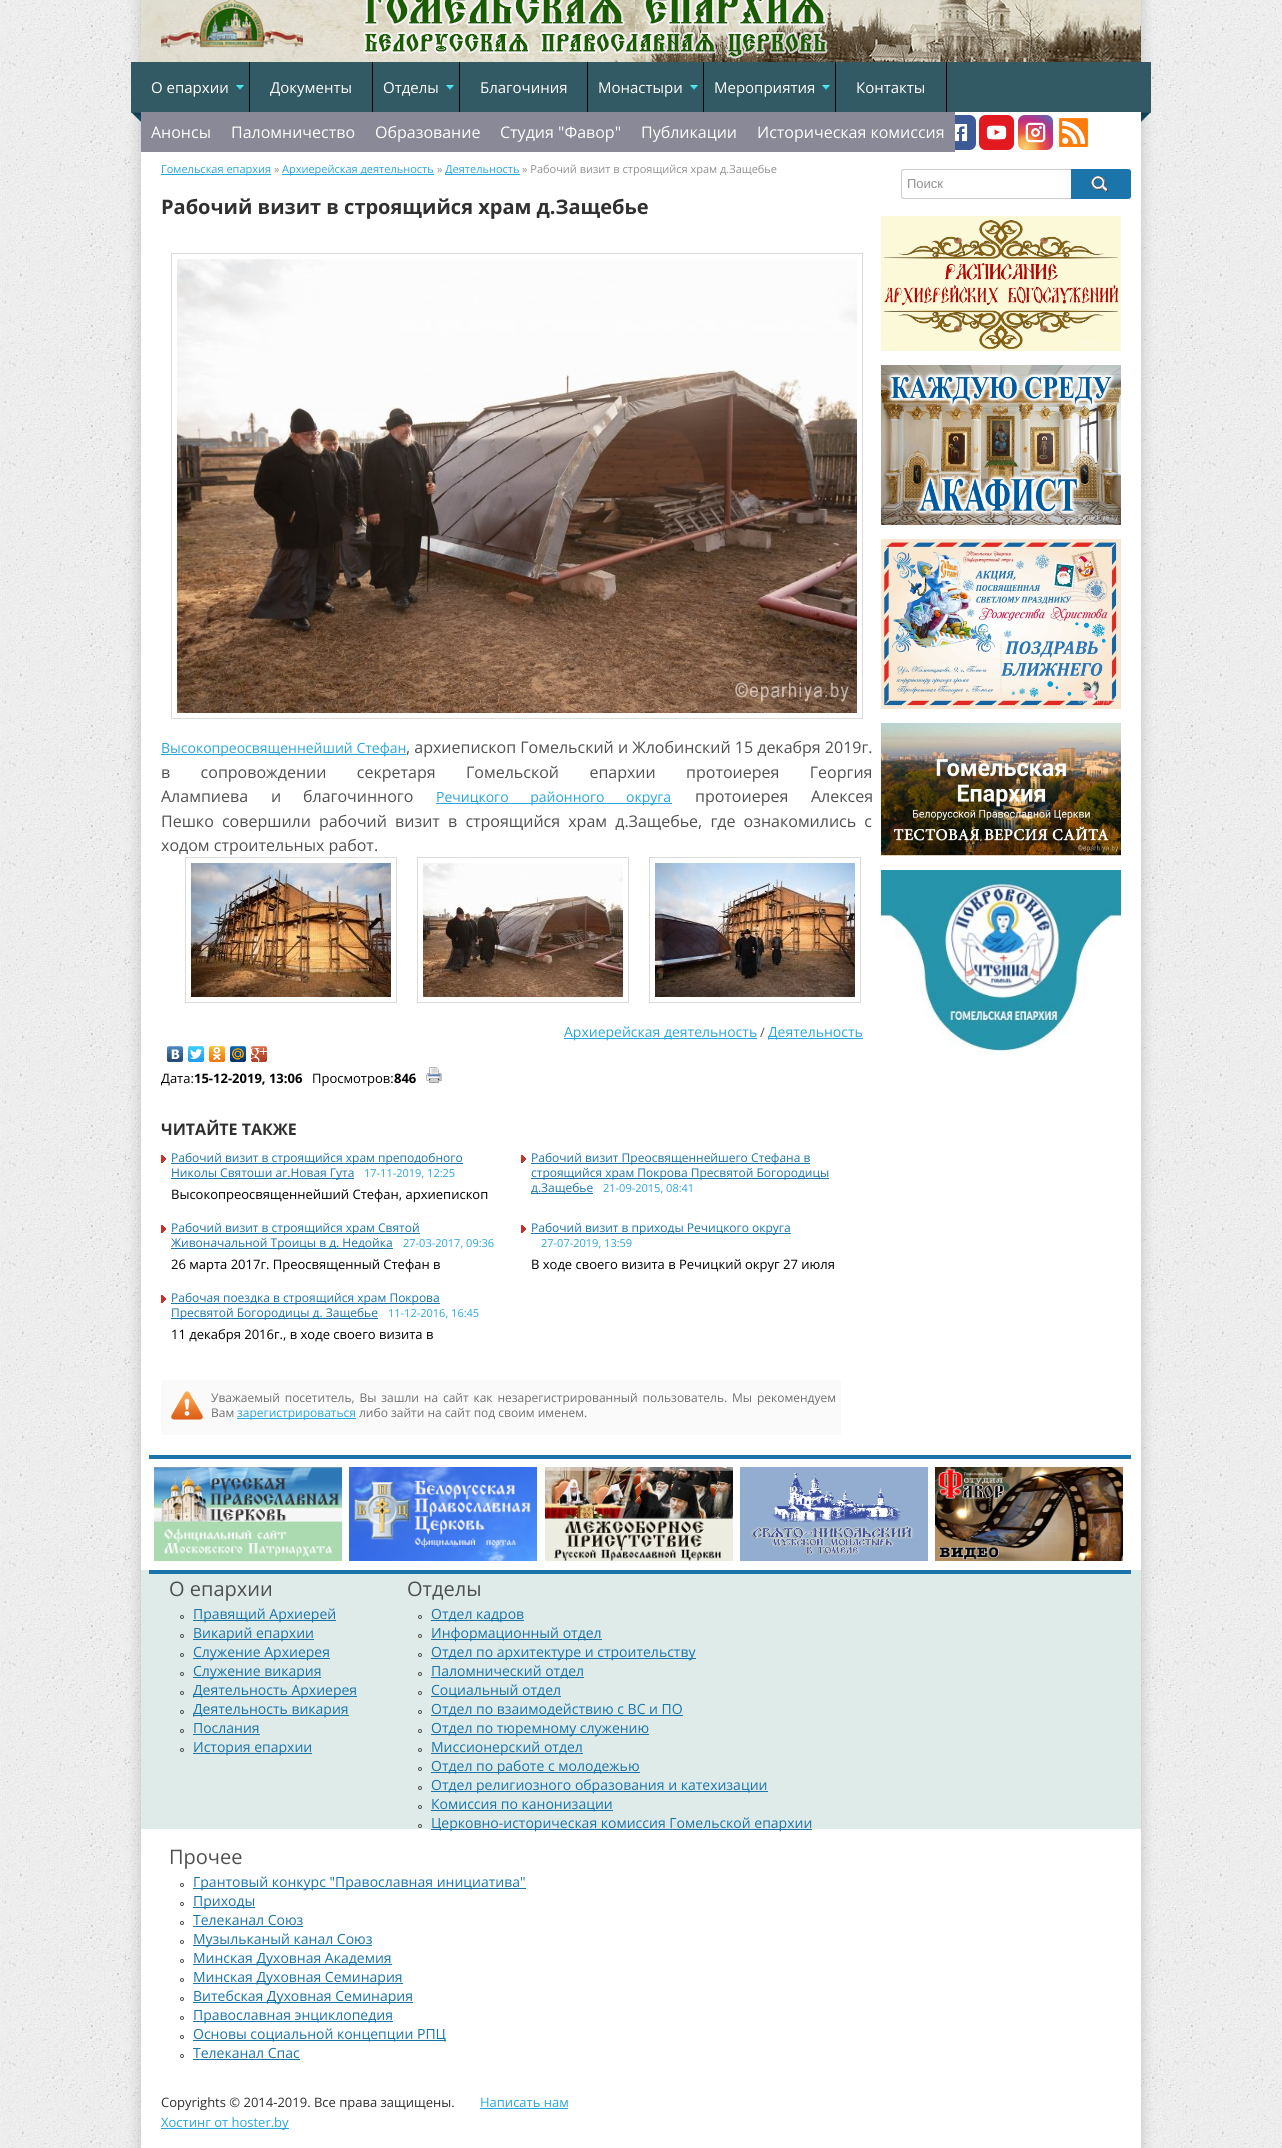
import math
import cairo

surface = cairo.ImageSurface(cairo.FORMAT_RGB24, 1282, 2148)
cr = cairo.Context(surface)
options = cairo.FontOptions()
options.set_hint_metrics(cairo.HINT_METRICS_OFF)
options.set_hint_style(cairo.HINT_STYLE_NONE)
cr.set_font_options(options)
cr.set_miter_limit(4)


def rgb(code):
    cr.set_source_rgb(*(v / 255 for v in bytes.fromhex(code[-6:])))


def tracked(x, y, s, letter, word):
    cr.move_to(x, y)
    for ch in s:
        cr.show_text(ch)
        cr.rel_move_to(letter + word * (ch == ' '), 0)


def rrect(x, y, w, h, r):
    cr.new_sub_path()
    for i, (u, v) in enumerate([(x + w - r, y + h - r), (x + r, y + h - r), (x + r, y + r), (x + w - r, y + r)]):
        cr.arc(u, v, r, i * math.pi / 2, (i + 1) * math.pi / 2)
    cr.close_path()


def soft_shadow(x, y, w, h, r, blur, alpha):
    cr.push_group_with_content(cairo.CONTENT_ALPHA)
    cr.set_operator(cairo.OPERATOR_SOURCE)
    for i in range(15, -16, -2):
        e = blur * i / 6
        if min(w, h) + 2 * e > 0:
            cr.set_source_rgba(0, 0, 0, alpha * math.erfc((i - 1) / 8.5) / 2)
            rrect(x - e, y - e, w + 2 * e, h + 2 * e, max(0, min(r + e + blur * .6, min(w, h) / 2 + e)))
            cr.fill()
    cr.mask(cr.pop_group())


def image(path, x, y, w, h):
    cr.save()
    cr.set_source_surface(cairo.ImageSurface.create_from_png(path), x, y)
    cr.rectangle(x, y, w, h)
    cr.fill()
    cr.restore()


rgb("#ffffff")
cr.paint()
image("img/1.png", 0, 0, 1282, 2148)
rgb("#000000")
soft_shadow(141, -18, 1000, 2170, 0, 7.5, 0.2)
rgb("#ffffff")
cr.rectangle(141, 112, 1000, 2036)
cr.fill()
image("img/2.png", 141, 0, 1000, 62)
image("img/3.png", 161, 0, 142, 53)
image("img/6.png", 955, 115, 21, 35)
image("img/7.png", 979, 115, 35, 35)
image("img/8.png", 1018, 115, 35, 35)
image("img/9.png", 1059, 118, 29, 30)
image("img/4.png", 131, 62, 1020, 60)
image("img/5.png", 236, 85, 8, 5)
rgb("#000000")
cr.rectangle(249, 62, 1, 50)
cr.fill()
cr.rectangle(372, 62, 1, 50)
cr.fill()
image("img/5.png", 446, 85, 8, 5)
cr.rectangle(459, 62, 1, 50)
cr.fill()
cr.rectangle(587, 62, 1, 50)
cr.fill()
image("img/5.png", 690, 85, 8, 5)
cr.rectangle(703, 62, 1, 50)
cr.fill()
image("img/5.png", 822, 85, 8, 5)
for x, y, w, h, color in [
    (835, 62, 1, 50, "#000000"),
    (946, 62, 1, 50, "#000000"),
    (141, 112, 814, 40, "#898998"),
    (161, 174, 110, 1, "#29a6da"),
    (282, 174, 152, 1, "#29a6da"),
    (445, 174, 75, 1, "#29a6da"),
]:
    rgb(color)
    cr.rectangle(x, y, w, h)
    cr.fill()
cr.rectangle(171.5, 253.5, 691, 465)
rgb("#dbdbd9")
cr.set_line_width(1)
cr.stroke()
image("img/10.png", 177, 259, 680, 454)
rgb("#29a6da")
cr.rectangle(161, 754, 245, 1)
cr.fill()
cr.rectangle(436, 803, 236, 1)
cr.fill()
cr.rectangle(185.5, 857.5, 211, 145)
rgb("#dbdbd9")
cr.stroke()
cr.rectangle(417.5, 857.5, 211, 145)
cr.stroke()
cr.rectangle(649.5, 857.5, 211, 145)
cr.stroke()
image("img/11.png", 191, 863, 200, 134)
image("img/12.png", 423, 863, 200, 134)
image("img/13.png", 655, 863, 200, 134)
rgb("#29a6da")
cr.rectangle(564, 1038, 193, 1)
cr.fill()
cr.rectangle(768, 1038, 95, 1)
cr.fill()
image("img/14.png", 167, 1046, 16, 16)
image("img/15.png", 188, 1046, 16, 16)
image("img/16.png", 209, 1046, 16, 16)
image("img/17.png", 230, 1046, 16, 16)
image("img/18.png", 251, 1046, 16, 16)
image("img/19.png", 426, 1067, 16, 16)
image("img/20.png", 161, 1155, 5, 8)
rgb("#1b74aa")
cr.rectangle(171, 1163, 292, 1)
cr.fill()
cr.rectangle(171, 1178, 183, 1)
cr.fill()
image("img/20.png", 521, 1155, 5, 8)
for x, y, w, h, color in [
    (531, 1163, 279, 1, "#1b74aa"),
    (531, 1178, 298, 1, "#1b74aa"),
    (531, 1193, 62, 1, "#1b74aa"),
]:
    rgb(color)
    cr.rectangle(x, y, w, h)
    cr.fill()
image("img/20.png", 161, 1225, 5, 8)
cr.rectangle(171, 1233, 249, 1)
cr.fill()
cr.rectangle(171, 1248, 222, 1)
cr.fill()
image("img/20.png", 521, 1225, 5, 8)
cr.rectangle(531, 1233, 260, 1)
cr.fill()
image("img/20.png", 161, 1295, 5, 8)
for x, y, w, h, color in [
    (171, 1303, 269, 1, "#1b74aa"),
    (171, 1318, 207, 1, "#1b74aa"),
    (161, 1380, 680, 55, "#fafafa"),
]:
    rgb(color)
    cr.rectangle(x, y, w, h)
    cr.fill()
image("img/21.png", 171, 1391, 32, 29)
rgb("#29a6da")
cr.rectangle(237, 1418, 119, 1)
cr.fill()
rgb("#cccccc")
cr.set_fill_rule(cairo.FILL_RULE_EVEN_ODD)
cr.new_path()
cr.move_to(904, 169)
cr.line_to(1072, 169)
cr.line_to(1072, 199)
cr.line_to(904, 199)
cr.curve_to(902, 199, 901, 198, 901, 196)
cr.line_to(901, 172)
cr.curve_to(901, 170, 902, 169, 904, 169)
cr.close_path()
cr.move_to(904, 170)
cr.line_to(1072, 170)
cr.line_to(1072, 198)
cr.line_to(904, 198)
cr.curve_to(903, 198, 902, 197, 902, 196)
cr.line_to(902, 172)
cr.curve_to(902, 171, 903, 170, 904, 170)
cr.close_path()
cr.fill()
image("img/22.png", 1071, 169, 60, 30)
image("img/23.png", 881, 216, 240, 135)
image("img/24.png", 881, 365, 240, 160)
image("img/25.png", 881, 539, 240, 170)
image("img/26.png", 881, 723, 240, 133)
image("img/27.png", 881, 870, 240, 185)
rgb("#1b74aa")
cr.rectangle(149, 1455, 982, 4)
cr.fill()
image("img/28.png", 154, 1467, 188, 94)
image("img/29.png", 349, 1467, 188, 94)
image("img/30.png", 545, 1467, 188, 94)
image("img/31.png", 740, 1467, 188, 94)
image("img/32.png", 935, 1467, 188, 94)
rgb("#deebe9")
cr.rectangle(141, 1570, 1000, 259)
cr.fill()
rgb("#1b74aa")
cr.rectangle(149, 1570, 982, 4)
cr.fill()
cr.arc(182, 1617, 1.5, 0, 2 * math.pi)
rgb("#505050")
cr.stroke()
rgb("#1b74aa")
cr.rectangle(193, 1620, 143, 1)
cr.fill()
cr.arc(182, 1636, 1.5, 0, 2 * math.pi)
rgb("#505050")
cr.stroke()
rgb("#1b74aa")
cr.rectangle(193, 1639, 121, 1)
cr.fill()
cr.arc(182, 1655, 1.5, 0, 2 * math.pi)
rgb("#505050")
cr.stroke()
rgb("#1b74aa")
cr.rectangle(193, 1658, 137, 1)
cr.fill()
cr.arc(182, 1674, 1.5, 0, 2 * math.pi)
rgb("#505050")
cr.stroke()
rgb("#1b74aa")
cr.rectangle(193, 1677, 128, 1)
cr.fill()
cr.arc(182, 1693, 1.5, 0, 2 * math.pi)
rgb("#505050")
cr.stroke()
rgb("#1b74aa")
cr.rectangle(193, 1696, 164, 1)
cr.fill()
cr.arc(182, 1712, 1.5, 0, 2 * math.pi)
rgb("#505050")
cr.stroke()
rgb("#1b74aa")
cr.rectangle(193, 1715, 156, 1)
cr.fill()
cr.arc(182, 1731, 1.5, 0, 2 * math.pi)
rgb("#505050")
cr.stroke()
rgb("#1b74aa")
cr.rectangle(193, 1734, 67, 1)
cr.fill()
cr.arc(182, 1750, 1.5, 0, 2 * math.pi)
rgb("#505050")
cr.stroke()
rgb("#1b74aa")
cr.rectangle(193, 1753, 119, 1)
cr.fill()
cr.arc(420, 1617, 1.5, 0, 2 * math.pi)
rgb("#505050")
cr.stroke()
rgb("#1b74aa")
cr.rectangle(431, 1620, 93, 1)
cr.fill()
cr.arc(420, 1636, 1.5, 0, 2 * math.pi)
rgb("#505050")
cr.stroke()
rgb("#1b74aa")
cr.rectangle(431, 1639, 171, 1)
cr.fill()
cr.arc(420, 1655, 1.5, 0, 2 * math.pi)
rgb("#505050")
cr.stroke()
rgb("#1b74aa")
cr.rectangle(431, 1658, 265, 1)
cr.fill()
cr.arc(420, 1674, 1.5, 0, 2 * math.pi)
rgb("#505050")
cr.stroke()
rgb("#1b74aa")
cr.rectangle(431, 1677, 153, 1)
cr.fill()
cr.arc(420, 1693, 1.5, 0, 2 * math.pi)
rgb("#505050")
cr.stroke()
rgb("#1b74aa")
cr.rectangle(431, 1696, 130, 1)
cr.fill()
cr.arc(420, 1712, 1.5, 0, 2 * math.pi)
rgb("#505050")
cr.stroke()
rgb("#1b74aa")
cr.rectangle(431, 1715, 252, 1)
cr.fill()
cr.arc(420, 1731, 1.5, 0, 2 * math.pi)
rgb("#505050")
cr.stroke()
rgb("#1b74aa")
cr.rectangle(431, 1734, 218, 1)
cr.fill()
cr.arc(420, 1750, 1.5, 0, 2 * math.pi)
rgb("#505050")
cr.stroke()
rgb("#1b74aa")
cr.rectangle(431, 1753, 152, 1)
cr.fill()
cr.arc(420, 1769, 1.5, 0, 2 * math.pi)
rgb("#505050")
cr.stroke()
rgb("#1b74aa")
cr.rectangle(431, 1772, 209, 1)
cr.fill()
cr.arc(420, 1788, 1.5, 0, 2 * math.pi)
rgb("#505050")
cr.stroke()
rgb("#1b74aa")
cr.rectangle(431, 1791, 337, 1)
cr.fill()
cr.arc(420, 1807, 1.5, 0, 2 * math.pi)
rgb("#505050")
cr.stroke()
rgb("#1b74aa")
cr.rectangle(431, 1810, 182, 1)
cr.fill()
cr.arc(420, 1826, 1.5, 0, 2 * math.pi)
rgb("#505050")
cr.stroke()
rgb("#1b74aa")
cr.rectangle(431, 1829, 381, 1)
cr.fill()
cr.arc(182, 1885, 1.5, 0, 2 * math.pi)
rgb("#505050")
cr.stroke()
rgb("#1b74aa")
cr.rectangle(193, 1888, 333, 1)
cr.fill()
cr.arc(182, 1904, 1.5, 0, 2 * math.pi)
rgb("#505050")
cr.stroke()
rgb("#1b74aa")
cr.rectangle(193, 1907, 62, 1)
cr.fill()
cr.arc(182, 1923, 1.5, 0, 2 * math.pi)
rgb("#505050")
cr.stroke()
rgb("#1b74aa")
cr.rectangle(193, 1926, 110, 1)
cr.fill()
cr.arc(182, 1942, 1.5, 0, 2 * math.pi)
rgb("#505050")
cr.stroke()
rgb("#1b74aa")
cr.rectangle(193, 1945, 179, 1)
cr.fill()
cr.arc(182, 1961, 1.5, 0, 2 * math.pi)
rgb("#505050")
cr.stroke()
rgb("#1b74aa")
cr.rectangle(193, 1964, 199, 1)
cr.fill()
cr.arc(182, 1980, 1.5, 0, 2 * math.pi)
rgb("#505050")
cr.stroke()
rgb("#1b74aa")
cr.rectangle(193, 1983, 210, 1)
cr.fill()
cr.arc(182, 1999, 1.5, 0, 2 * math.pi)
rgb("#505050")
cr.stroke()
rgb("#1b74aa")
cr.rectangle(193, 2002, 220, 1)
cr.fill()
cr.arc(182, 2018, 1.5, 0, 2 * math.pi)
rgb("#505050")
cr.stroke()
rgb("#1b74aa")
cr.rectangle(193, 2021, 200, 1)
cr.fill()
cr.arc(182, 2037, 1.5, 0, 2 * math.pi)
rgb("#505050")
cr.stroke()
rgb("#1b74aa")
cr.rectangle(193, 2040, 253, 1)
cr.fill()
cr.arc(182, 2056, 1.5, 0, 2 * math.pi)
rgb("#505050")
cr.stroke()
for x, y, w, h, color in [
    (193, 2059, 107, 1, "#1b74aa"),
    (161, 2128, 128, 1, "#29a6da"),
    (480, 2108, 88, 1, "#29a6da"),
]:
    rgb(color)
    cr.rectangle(x, y, w, h)
    cr.fill()
cr.select_font_face("Open Sans")
cr.set_font_size(15)
rgb("#ffffff")
for x, y, s in [
    (151, 93, "О епархии"),
    (270, 93, "Документы"),
    (383, 93, "Отделы"),
    (480, 93, "Благочиния"),
    (598, 93, "Монастыри"),
    (714, 93, "Мероприятия"),
    (856, 93, "Контакты"),
]:
    cr.move_to(x, y)
    cr.show_text(s)
cr.set_font_size(16)
for x, y, s in [
    (151, 138, "Анонсы"),
    (231, 138, "Паломничество"),
    (375, 138, "Образование"),
    (500, 138, "Студия \"Фавор\""),
    (641, 138, "Публикации"),
    (757, 138, "Историческая комиссия"),
]:
    cr.move_to(x, y)
    cr.show_text(s)
cr.set_font_size(11)
rgb("#29a6da")
cr.move_to(161, 173)
cr.show_text("Гомельская епархия")
rgb("#909090")
cr.move_to(274, 173)
cr.show_text("»")
rgb("#29a6da")
cr.move_to(282, 173)
cr.show_text("Архиерейская деятельность")
rgb("#909090")
cr.move_to(437, 173)
cr.show_text("»")
rgb("#29a6da")
cr.move_to(445, 173)
cr.show_text("Деятельность")
rgb("#909090")
cr.move_to(522, 173)
cr.show_text("» Рабочий визит в строящийся храм д.Защебье")
cr.select_font_face("Open Sans", cairo.FONT_SLANT_NORMAL, cairo.FONT_WEIGHT_BOLD)
cr.set_font_size(20)
rgb("#303030")
cr.move_to(161, 214)
cr.show_text("Рабочий визит в строящийся храм д.Защебье")
cr.select_font_face("Open Sans")
cr.set_font_size(14)
rgb("#29a6da")
cr.move_to(161, 753)
cr.show_text("Высокопреосвященнейший Стефан")
cr.set_font_size(16)
rgb("#505050")
cr.move_to(406, 753)
cr.show_text(", архиепископ Гомельский и Жлобинский 15 декабря 2019г.")
tracked(161, 778, "в сопровождении секретаря Гомельской епархии протоиерея Георгия", 0, 26.25)
cr.move_to(161, 802)
cr.show_text("Алампиева")
cr.move_to(271, 802)
cr.show_text("и")
cr.move_to(303, 802)
cr.show_text("благочинного")
cr.set_font_size(14)
rgb("#29a6da")
tracked(436, 802, "Речицкого районного округа", 0, 18)
cr.set_font_size(16)
rgb("#505050")
cr.move_to(695, 802)
cr.show_text("протоиерея")
cr.move_to(811, 802)
cr.show_text("Алексея")
tracked(161, 827, "Пешко совершили рабочий визит в строящийся храм д.Защебье, где ознакомились с", 0, 4)
cr.move_to(161, 851)
cr.show_text("ходом строительных работ.")
cr.set_font_size(14)
rgb("#29a6da")
cr.move_to(564, 1037)
cr.show_text("Архиерейская деятельность")
cr.set_font_size(13)
rgb("#505050")
cr.move_to(760, 1037)
cr.show_text("/")
cr.set_font_size(14)
rgb("#29a6da")
cr.move_to(768, 1037)
cr.show_text("Деятельность")
cr.set_font_size(13)
rgb("#000000")
cr.move_to(161, 1083)
cr.show_text("Дата:")
cr.select_font_face("Open Sans", cairo.FONT_SLANT_NORMAL, cairo.FONT_WEIGHT_BOLD)
cr.move_to(194, 1083)
cr.show_text("15-12-2019, 13:06")
cr.select_font_face("Open Sans")
cr.move_to(312, 1083)
cr.show_text("Просмотров:")
cr.select_font_face("Open Sans", cairo.FONT_SLANT_NORMAL, cairo.FONT_WEIGHT_BOLD)
cr.move_to(394, 1083)
cr.show_text("846")
cr.set_font_size(16)
rgb("#303030")
cr.move_to(161, 1135)
cr.show_text("ЧИТАЙТЕ ТАКЖЕ")
cr.select_font_face("Open Sans")
cr.set_font_size(12)
rgb("#1b74aa")
cr.move_to(171, 1162)
cr.show_text("Рабочий визит в строящийся храм преподобного")
cr.move_to(171, 1177)
cr.show_text("Николы Святоши аг.Новая Гута")
cr.set_font_size(11)
rgb("#29a6da")
cr.move_to(364, 1177)
cr.show_text("17-11-2019, 12:25")
cr.set_font_size(13)
rgb("#000000")
cr.move_to(171, 1199)
cr.show_text("Высокопреосвященнейший Стефан, архиепископ")
cr.set_font_size(12)
rgb("#1b74aa")
for x, y, s in [
    (531, 1162, "Рабочий визит Преосвященнейшего Стефана в"),
    (531, 1177, "строящийся храм Покрова Пресвятой Богородицы"),
    (531, 1192, "д.Защебье"),
]:
    cr.move_to(x, y)
    cr.show_text(s)
cr.set_font_size(11)
rgb("#29a6da")
cr.move_to(603, 1192)
cr.show_text("21-09-2015, 08:41")
cr.set_font_size(12)
rgb("#1b74aa")
cr.move_to(171, 1232)
cr.show_text("Рабочий визит в строящийся храм Святой")
cr.move_to(171, 1247)
cr.show_text("Живоначальной Троицы в д. Недойка")
cr.set_font_size(11)
rgb("#29a6da")
cr.move_to(403, 1247)
cr.show_text("27-03-2017, 09:36")
cr.set_font_size(13)
rgb("#000000")
cr.move_to(171, 1269)
cr.show_text("26 марта 2017г. Преосвященный Стефан в")
cr.set_font_size(12)
rgb("#1b74aa")
cr.move_to(531, 1232)
cr.show_text("Рабочий визит в приходы Речицкого округа")
cr.set_font_size(11)
rgb("#29a6da")
cr.move_to(541, 1247)
cr.show_text("27-07-2019, 13:59")
cr.set_font_size(13)
rgb("#000000")
cr.move_to(531, 1269)
cr.show_text("В ходе своего визита в Речицкий округ 27 июля")
cr.set_font_size(12)
rgb("#1b74aa")
cr.move_to(171, 1302)
cr.show_text("Рабочая поездка в строящийся храм Покрова")
cr.move_to(171, 1317)
cr.show_text("Пресвятой Богородицы д. Защебье")
cr.set_font_size(11)
rgb("#29a6da")
cr.move_to(388, 1317)
cr.show_text("11-12-2016, 16:45")
cr.set_font_size(13)
rgb("#000000")
cr.move_to(171, 1339)
cr.show_text("11 декабря 2016г., в ходе своего визита в")
cr.set_font_size(12)
rgb("#707070")
tracked(211, 1402, "Уважаемый посетитель, Вы зашли на сайт как незарегистрированный пользователь. Мы рекомендуем", 0, 1.75)
cr.move_to(211, 1417)
cr.show_text("Вам")
rgb("#29a6da")
cr.move_to(237, 1417)
cr.show_text("зарегистрироваться")
rgb("#707070")
cr.move_to(359, 1417)
cr.show_text("либо зайти на сайт под своим именем.")
cr.select_font_face("Liberation Sans")
cr.set_font_size(13)
rgb("#909090")
cr.move_to(907, 188)
cr.show_text("Поиск")
cr.select_font_face("Open Sans")
cr.set_font_size(20)
rgb("#505050")
cr.move_to(169, 1596)
cr.show_text("О епархии")
cr.set_font_size(14)
rgb("#1b74aa")
for x, y, s in [
    (193, 1619, "Правящий Архиерей"),
    (193, 1638, "Викарий епархии"),
    (193, 1657, "Служение Архиерея"),
    (193, 1676, "Служение викария"),
    (193, 1695, "Деятельность Архиерея"),
    (193, 1714, "Деятельность викария"),
    (193, 1733, "Послания"),
    (193, 1752, "История епархии"),
]:
    cr.move_to(x, y)
    cr.show_text(s)
cr.set_font_size(20)
rgb("#505050")
cr.move_to(407, 1596)
cr.show_text("Отделы")
cr.set_font_size(14)
rgb("#1b74aa")
for x, y, s in [
    (431, 1619, "Отдел кадров"),
    (431, 1638, "Информационный отдел"),
    (431, 1657, "Отдел по архитектуре и строительству"),
    (431, 1676, "Паломнический отдел"),
    (431, 1695, "Социальный отдел"),
    (431, 1714, "Отдел по взаимодействию с ВС и ПО"),
    (431, 1733, "Отдел по тюремному служению"),
    (431, 1752, "Миссионерский отдел"),
    (431, 1771, "Отдел по работе с молодежью"),
    (431, 1790, "Отдел религиозного образования и катехизации"),
    (431, 1809, "Комиссия по канонизации"),
    (431, 1828, "Церковно-историческая комиссия Гомельской епархии"),
]:
    cr.move_to(x, y)
    cr.show_text(s)
cr.set_font_size(20)
rgb("#505050")
cr.move_to(169, 1864)
cr.show_text("Прочее")
cr.set_font_size(14)
rgb("#1b74aa")
for x, y, s in [
    (193, 1887, "Грантовый конкурс \"Православная инициатива\""),
    (193, 1906, "Приходы"),
    (193, 1925, "Телеканал Союз"),
    (193, 1944, "Музыльканый канал Союз"),
    (193, 1963, "Минская Духовная Академия"),
    (193, 1982, "Минская Духовная Семинария"),
    (193, 2001, "Витебская Духовная Семинария"),
    (193, 2020, "Православная энциклопедия"),
    (193, 2039, "Основы социальной концепции РПЦ"),
    (193, 2058, "Телеканал Спас"),
]:
    cr.move_to(x, y)
    cr.show_text(s)
cr.set_font_size(13)
rgb("#303030")
cr.move_to(161, 2107)
cr.show_text("Copyrights © 2014-2019. Все права защищены.")
rgb("#29a6da")
cr.move_to(161, 2127)
cr.show_text("Хостинг от hoster.by")
cr.move_to(480, 2107)
cr.show_text("Написать нам")
surface.write_to_png("page.png")
